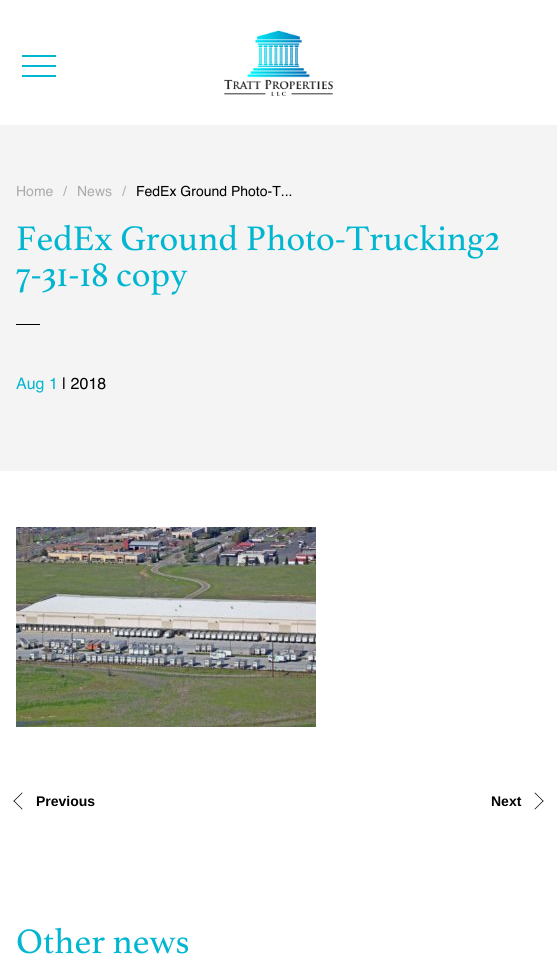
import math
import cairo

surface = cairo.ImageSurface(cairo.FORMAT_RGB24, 557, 957)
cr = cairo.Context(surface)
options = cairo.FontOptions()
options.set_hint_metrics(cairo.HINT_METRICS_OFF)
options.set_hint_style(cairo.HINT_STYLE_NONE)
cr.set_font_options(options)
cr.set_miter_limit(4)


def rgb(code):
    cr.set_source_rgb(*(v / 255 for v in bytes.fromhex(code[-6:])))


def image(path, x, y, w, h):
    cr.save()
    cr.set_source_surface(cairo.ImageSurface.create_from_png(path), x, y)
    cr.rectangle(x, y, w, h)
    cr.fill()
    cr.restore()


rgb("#ffffff")
cr.paint()
for x, y, w, h, color in [
    (22, 65, 34, 2, "#01b6d0"),
    (22, 55, 34, 2, "#01b6d0"),
    (22, 75, 34, 2, "#01b6d0"),
]:
    rgb(color)
    cr.rectangle(x, y, w, h)
    cr.fill()
image("img/1.png", 223, 30, 111, 66)
rgb("#f4f4f4")
cr.rectangle(0, 125, 557, 346)
cr.fill()
rgb("#000000")
cr.rectangle(16, 324, 24, 1)
cr.fill()
image("img/2.png", 16, 527, 300, 200)
cr.new_path()
cr.move_to(13.5, 801)
cr.line_to(22, 792.5)
cr.line_to(22.5, 793)
cr.line_to(14, 801.5)
cr.close_path()
cr.fill()
cr.new_path()
cr.move_to(13.5, 801)
cr.line_to(14, 800.5)
cr.line_to(22.5, 809)
cr.line_to(22, 809.5)
cr.close_path()
cr.fill()
cr.new_path()
cr.move_to(535, 792.5)
cr.line_to(543.5, 801)
cr.line_to(543, 801.5)
cr.line_to(534.5, 793)
cr.close_path()
cr.fill()
cr.new_path()
cr.move_to(543, 800.5)
cr.line_to(543.5, 801)
cr.line_to(535, 809.5)
cr.line_to(534.5, 809)
cr.close_path()
cr.fill()
cr.select_font_face("Helvetica")
cr.set_font_size(14)
rgb("#ababab")
for x, y, s in [
    (16, 196, "Home"),
    (63, 196, "/"),
    (77, 196, "News"),
    (122, 196, "/"),
]:
    cr.move_to(x, y)
    cr.show_text(s)
rgb("#000000")
cr.move_to(136, 196)
cr.show_text("FedEx Ground Photo-T...")
cr.select_font_face("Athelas")
cr.set_font_size(36)
rgb("#01b6d0")
cr.move_to(16, 250)
cr.show_text("FedEx Ground Photo-Trucking2")
cr.move_to(16, 286)
cr.show_text("7-31-18 copy")
cr.select_font_face("Helvetica")
cr.set_font_size(16)
cr.move_to(16, 389)
cr.show_text("Aug 1")
rgb("#000000")
cr.move_to(62, 389)
cr.show_text("| 2018")
cr.select_font_face("Liberation Sans", cairo.FONT_SLANT_NORMAL, cairo.FONT_WEIGHT_BOLD)
cr.set_font_size(14)
cr.move_to(36, 806)
cr.show_text("Previous")
cr.move_to(491, 806)
cr.show_text("Next")
cr.select_font_face("Athelas")
cr.set_font_size(36)
rgb("#01b6d0")
cr.move_to(16, 953)
cr.show_text("Other news")
surface.write_to_png("page.png")
